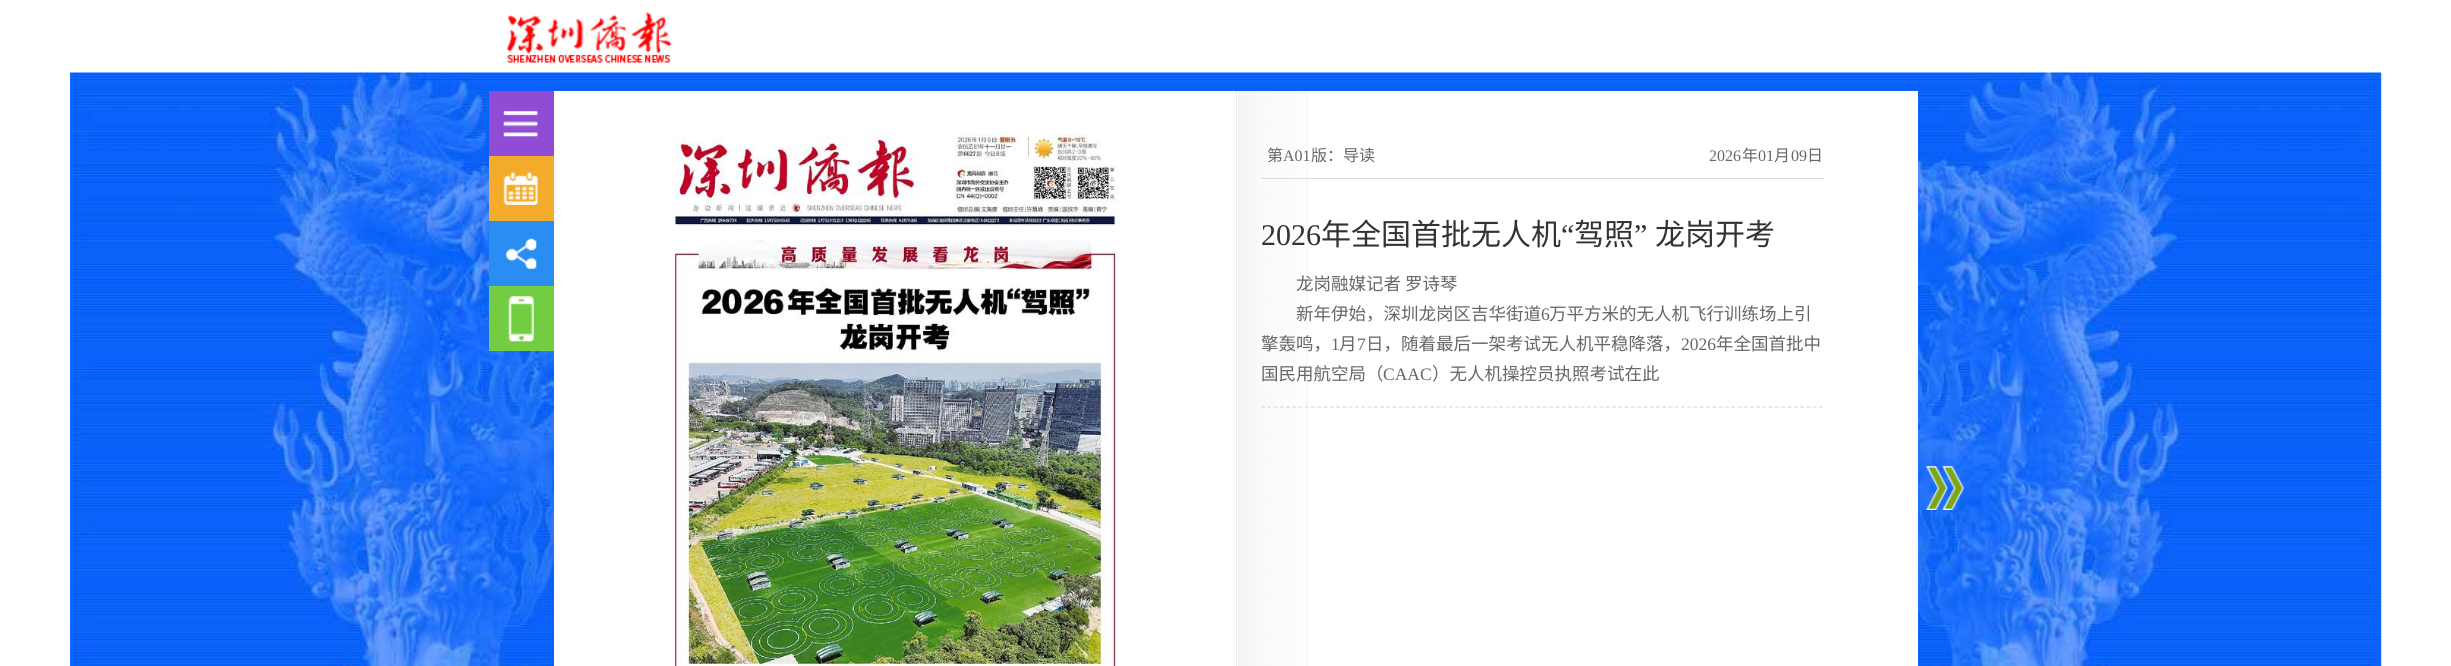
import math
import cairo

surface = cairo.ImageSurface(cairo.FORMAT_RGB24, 2451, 666)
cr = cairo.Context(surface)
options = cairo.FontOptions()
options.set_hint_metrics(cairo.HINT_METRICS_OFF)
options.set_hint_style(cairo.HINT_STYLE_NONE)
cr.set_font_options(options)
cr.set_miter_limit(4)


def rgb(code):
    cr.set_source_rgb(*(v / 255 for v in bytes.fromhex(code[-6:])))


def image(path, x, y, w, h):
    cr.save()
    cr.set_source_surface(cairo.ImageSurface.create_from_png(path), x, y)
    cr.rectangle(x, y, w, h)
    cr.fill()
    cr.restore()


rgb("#ffffff")
cr.paint()
image("img/1.png", 507, 12, 165, 51)
image("img/2.png", 70, 72, 2312, 594)
rgb("#904cd5")
cr.rectangle(489, 91, 65, 65)
cr.fill()
image("img/3.png", 503, 111, 35, 26)
rgb("#f2ab2a")
cr.rectangle(489, 156, 65, 65)
cr.fill()
image("img/4.png", 503, 172, 35, 33)
rgb("#2a8df2")
cr.rectangle(489, 221, 65, 65)
cr.fill()
image("img/5.png", 506, 238, 31, 31)
rgb("#73cd42")
cr.rectangle(489, 286, 65, 65)
cr.fill()
image("img/6.png", 508, 296, 26, 46)
rgb("#ffffff")
cr.rectangle(554, 91, 1364, 575)
cr.fill()
rgb("#eaeaea")
cr.rectangle(1236, 91, 1, 575)
cr.fill()
image("img/7.png", 674, 134, 446, 532)
image("img/8.png", 1238, 91, 70, 575)
rgb("#dddddd")
cr.rectangle(1261, 178, 563, 1)
cr.fill()
cr.new_path()
cr.move_to(1261, 407)
cr.line_to(1824, 407)
rgb("#dadada")
cr.set_line_width(1.2)
cr.set_dash([3.75, 2.52])
cr.stroke()
image("img/9.png", 1926, 466, 38, 44)
cr.select_font_face("Noto Sans CJK SC")
cr.set_font_size(16)
rgb("#666666")
cr.move_to(1267, 161)
cr.show_text("第")
cr.select_font_face("Liberation Serif")
cr.move_to(1283, 161)
cr.show_text("A01")
cr.select_font_face("Noto Sans CJK SC")
cr.move_to(1311, 161)
cr.show_text("版：导读")
cr.select_font_face("Liberation Serif")
cr.move_to(1709, 161)
cr.show_text("2026")
cr.select_font_face("Noto Sans CJK SC")
cr.move_to(1742, 161)
cr.show_text("年")
cr.select_font_face("Liberation Serif")
cr.move_to(1758, 161)
cr.show_text("01")
cr.select_font_face("Noto Sans CJK SC")
cr.move_to(1774, 161)
cr.show_text("月")
cr.select_font_face("Liberation Serif")
cr.move_to(1791, 161)
cr.show_text("09")
cr.select_font_face("Noto Sans CJK SC")
cr.move_to(1807, 161)
cr.show_text("日")
cr.select_font_face("Liberation Serif")
cr.set_font_size(30)
rgb("#333333")
cr.move_to(1261, 245)
cr.show_text("2026")
cr.select_font_face("Noto Sans CJK SC")
cr.move_to(1321, 245)
cr.show_text("年全国首批无人机")
cr.select_font_face("Liberation Serif")
cr.move_to(1561, 245)
cr.show_text("“")
cr.select_font_face("Noto Sans CJK SC")
cr.move_to(1574, 245)
cr.show_text("驾照")
cr.select_font_face("Liberation Serif")
cr.move_to(1634, 245)
cr.show_text("”")
cr.select_font_face("Noto Sans CJK SC")
cr.move_to(1655, 245)
cr.show_text("龙岗开考")
cr.set_font_size(17.5)
rgb("#666666")
cr.move_to(1296, 290)
cr.show_text("龙岗融媒记者 罗诗琴")
cr.move_to(1296, 320)
cr.show_text("新年伊始，深圳龙岗区吉华街道")
cr.select_font_face("Liberation Serif")
cr.move_to(1541, 320)
cr.show_text("6")
cr.select_font_face("Noto Sans CJK SC")
cr.move_to(1549, 320)
cr.show_text("万平方米的无人机飞行训练场上引")
cr.move_to(1261, 350)
cr.show_text("擎轰鸣，")
cr.select_font_face("Liberation Serif")
cr.move_to(1331, 350)
cr.show_text("1")
cr.select_font_face("Noto Sans CJK SC")
cr.move_to(1339, 350)
cr.show_text("月")
cr.select_font_face("Liberation Serif")
cr.move_to(1357, 350)
cr.show_text("7")
cr.select_font_face("Noto Sans CJK SC")
cr.move_to(1366, 350)
cr.show_text("日，随着最后一架考试无人机平稳降落，")
cr.select_font_face("Liberation Serif")
cr.move_to(1681, 350)
cr.show_text("2026")
cr.select_font_face("Noto Sans CJK SC")
cr.move_to(1716, 350)
cr.show_text("年全国首批中")
cr.move_to(1261, 380)
cr.show_text("国民用航空局（")
cr.select_font_face("Liberation Serif")
cr.move_to(1383, 380)
cr.show_text("CAAC")
cr.select_font_face("Noto Sans CJK SC")
cr.move_to(1432, 380)
cr.show_text("）无人机操控员执照考试在此")
surface.write_to_png("page.png")
